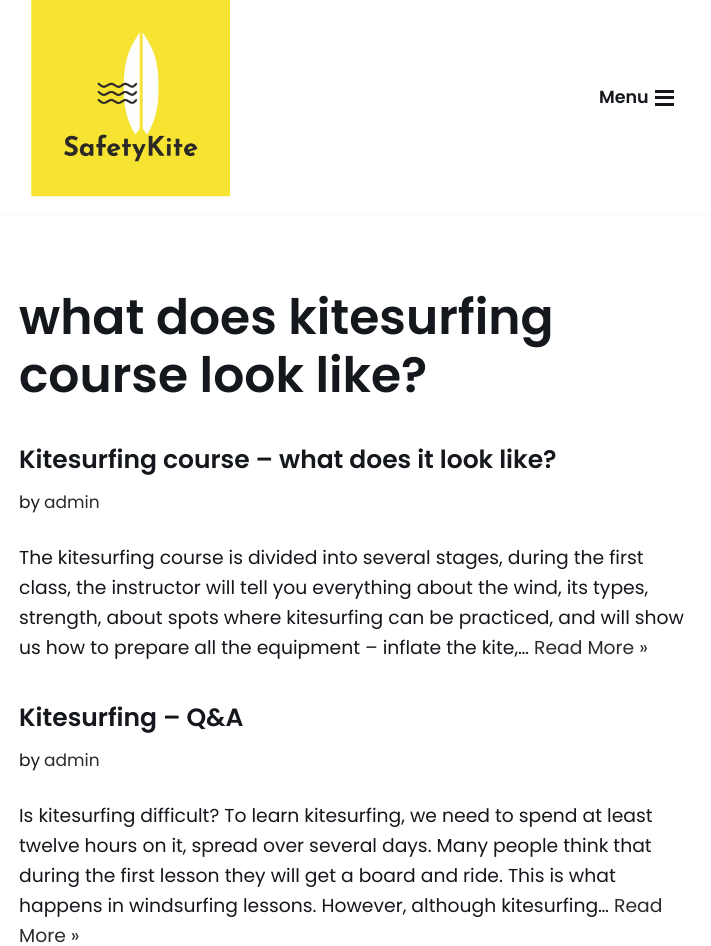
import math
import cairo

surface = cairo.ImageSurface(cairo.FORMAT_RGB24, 711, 946)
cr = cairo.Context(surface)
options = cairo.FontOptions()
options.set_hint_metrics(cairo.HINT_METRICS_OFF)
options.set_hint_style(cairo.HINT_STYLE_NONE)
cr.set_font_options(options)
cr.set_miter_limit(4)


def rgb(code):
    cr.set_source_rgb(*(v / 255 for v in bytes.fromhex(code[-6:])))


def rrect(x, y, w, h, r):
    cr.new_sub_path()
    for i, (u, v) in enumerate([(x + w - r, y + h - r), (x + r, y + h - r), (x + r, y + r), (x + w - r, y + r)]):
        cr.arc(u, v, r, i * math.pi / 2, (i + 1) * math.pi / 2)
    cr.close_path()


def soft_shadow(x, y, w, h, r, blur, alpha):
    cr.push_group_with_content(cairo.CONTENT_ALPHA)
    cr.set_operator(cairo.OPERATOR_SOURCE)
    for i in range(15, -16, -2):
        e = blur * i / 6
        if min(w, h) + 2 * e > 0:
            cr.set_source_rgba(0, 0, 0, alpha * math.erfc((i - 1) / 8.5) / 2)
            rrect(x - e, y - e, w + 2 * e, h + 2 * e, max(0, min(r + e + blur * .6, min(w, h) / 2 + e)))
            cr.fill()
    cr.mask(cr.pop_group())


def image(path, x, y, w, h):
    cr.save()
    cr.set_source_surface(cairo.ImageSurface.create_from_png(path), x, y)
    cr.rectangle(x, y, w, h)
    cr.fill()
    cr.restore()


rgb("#ffffff")
cr.paint()
rgb("#000000")
soft_shadow(0, -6, 711, 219, 0, 2, 0.1)
rgb("#ffffff")
cr.rectangle(0, 0, 711, 214)
cr.fill()
image("img/1.png", 31, 0, 199, 197)
for x, y, w, h, color in [
    (655, 90, 19, 3, "#14171c"),
    (655, 96, 19, 3, "#14171c"),
    (655, 103, 19, 3, "#14171c"),
]:
    rgb(color)
    cr.rectangle(x, y, w, h)
    cr.fill()
cr.select_font_face("Poppins SemiBold")
cr.set_font_size(17.5)
cr.move_to(599, 103)
cr.show_text("Menu")
cr.set_font_size(48.75)
cr.move_to(19, 334)
cr.show_text("what does kitesurfing")
cr.move_to(19, 392)
cr.show_text("course look like?")
cr.set_font_size(25)
cr.move_to(19, 468)
cr.show_text("Kitesurfing course – what does it look like?")
cr.select_font_face("Poppins")
cr.set_font_size(17)
cr.move_to(19, 508)
cr.show_text("by")
rgb("#2b2b2b")
cr.move_to(44, 508)
cr.show_text("admin")
cr.set_font_size(18.75)
rgb("#14171c")
for x, y, s in [
    (19, 564, "The kitesurfing course is divided into several stages, during the first"),
    (19, 594, "class, the instructor will tell you everything about the wind, its types,"),
    (19, 624, "strength, about spots where kitesurfing can be practiced, and will show"),
    (19, 654, "us how to prepare all the equipment – inflate the kite,…"),
]:
    cr.move_to(x, y)
    cr.show_text(s)
rgb("#2b2b2b")
cr.move_to(534, 654)
cr.show_text("Read More »")
cr.select_font_face("Poppins SemiBold")
cr.set_font_size(25)
rgb("#14171c")
cr.move_to(19, 726)
cr.show_text("Kitesurfing – Q&A")
cr.select_font_face("Poppins")
cr.set_font_size(17)
cr.move_to(19, 766)
cr.show_text("by")
rgb("#2b2b2b")
cr.move_to(44, 766)
cr.show_text("admin")
cr.set_font_size(18.75)
rgb("#14171c")
for x, y, s in [
    (19, 822, "Is kitesurfing difficult? To learn kitesurfing, we need to spend at least"),
    (19, 852, "twelve hours on it, spread over several days. Many people think that"),
    (19, 882, "during the first lesson they will get a board and ride. This is what"),
    (19, 912, "happens in windsurfing lessons. However, although kitesurfing…"),
]:
    cr.move_to(x, y)
    cr.show_text(s)
rgb("#2b2b2b")
cr.move_to(614, 912)
cr.show_text("Read")
cr.move_to(19, 942)
cr.show_text("More »")
surface.write_to_png("page.png")
